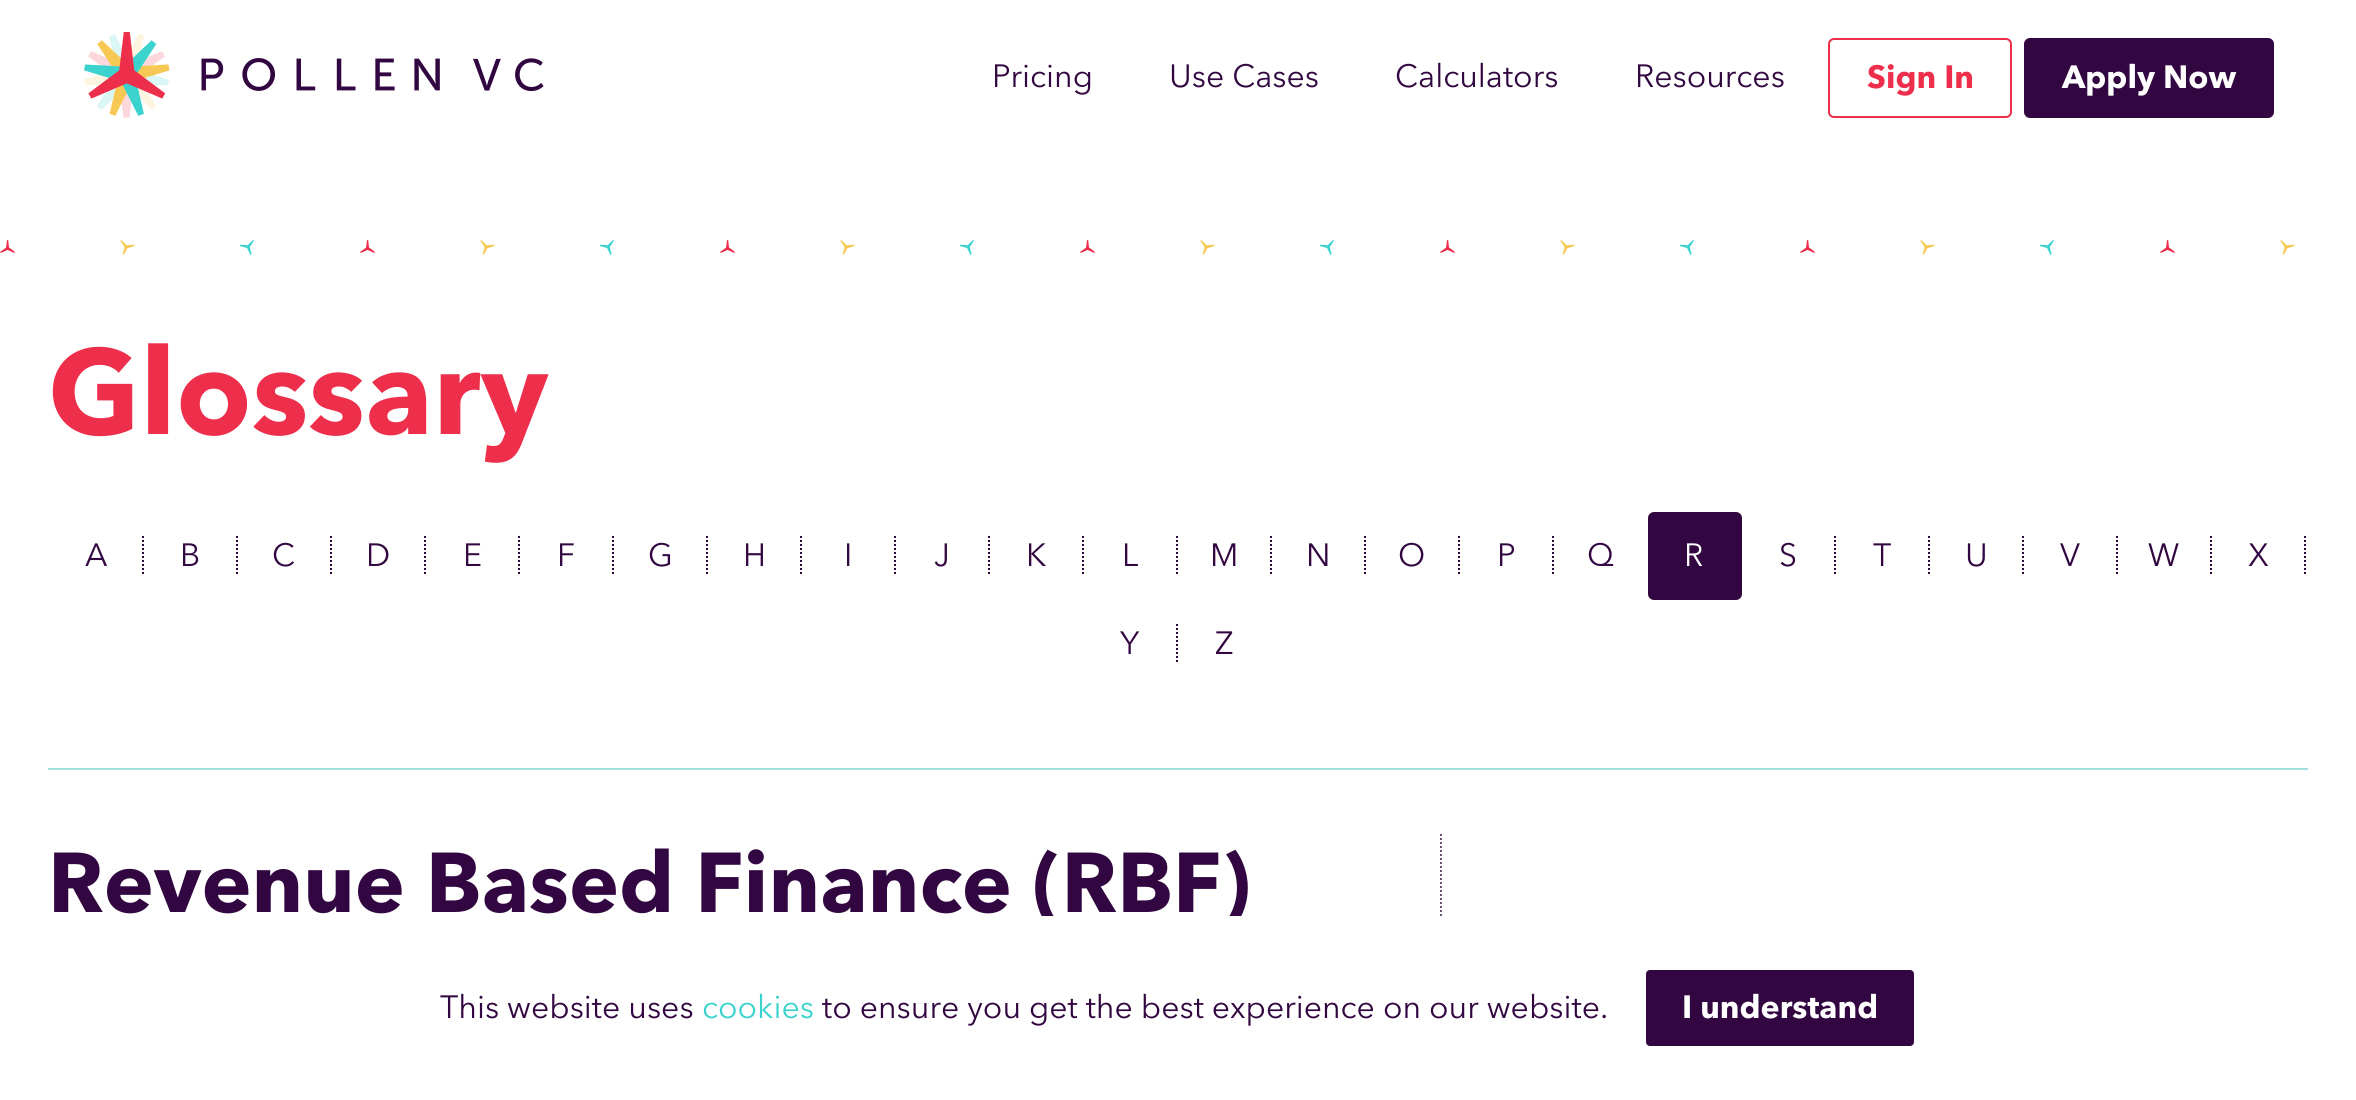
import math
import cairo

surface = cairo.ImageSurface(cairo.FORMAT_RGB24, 2356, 1100)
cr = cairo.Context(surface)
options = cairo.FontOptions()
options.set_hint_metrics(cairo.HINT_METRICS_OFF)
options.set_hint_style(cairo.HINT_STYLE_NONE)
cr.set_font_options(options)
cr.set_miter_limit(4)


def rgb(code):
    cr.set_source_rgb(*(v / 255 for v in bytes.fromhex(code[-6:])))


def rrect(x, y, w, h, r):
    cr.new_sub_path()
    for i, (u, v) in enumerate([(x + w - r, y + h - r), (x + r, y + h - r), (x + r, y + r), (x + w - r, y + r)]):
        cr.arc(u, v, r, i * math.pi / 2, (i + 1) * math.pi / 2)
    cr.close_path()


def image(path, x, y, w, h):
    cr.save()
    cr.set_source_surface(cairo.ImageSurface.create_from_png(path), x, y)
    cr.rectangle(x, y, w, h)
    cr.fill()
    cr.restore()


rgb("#ffffff")
cr.paint()
image("img/1.png", 84, 32, 460, 86)
rrect(1829, 39, 182, 78, 5)
rgb("#ed2f4b")
cr.stroke()
rgb("#320741")
rrect(2025, 39, 248, 78, 5)
cr.fill_preserve()
cr.stroke()
image("img/2.png", 0, 240, 2295, 15)
rgb("#a2dfdd")
cr.rectangle(48, 768, 2260, 2)
cr.fill()
cr.new_path()
cr.move_to(143, 536)
cr.line_to(143, 576)
rgb("#320741")
cr.set_dash([2, 2])
cr.stroke()
cr.new_path()
cr.move_to(237, 536)
cr.line_to(237, 576)
cr.stroke()
cr.new_path()
cr.move_to(331, 536)
cr.line_to(331, 576)
cr.stroke()
cr.new_path()
cr.move_to(425, 536)
cr.line_to(425, 576)
cr.stroke()
cr.new_path()
cr.move_to(519, 536)
cr.line_to(519, 576)
cr.stroke()
cr.new_path()
cr.move_to(613, 536)
cr.line_to(613, 576)
cr.stroke()
cr.new_path()
cr.move_to(707, 536)
cr.line_to(707, 576)
cr.stroke()
cr.new_path()
cr.move_to(801, 536)
cr.line_to(801, 576)
cr.stroke()
cr.new_path()
cr.move_to(895, 536)
cr.line_to(895, 576)
cr.stroke()
cr.new_path()
cr.move_to(989, 536)
cr.line_to(989, 576)
cr.stroke()
cr.new_path()
cr.move_to(1083, 536)
cr.line_to(1083, 576)
cr.stroke()
cr.new_path()
cr.move_to(1177, 536)
cr.line_to(1177, 576)
cr.stroke()
cr.new_path()
cr.move_to(1271, 536)
cr.line_to(1271, 576)
cr.stroke()
cr.new_path()
cr.move_to(1365, 536)
cr.line_to(1365, 576)
cr.stroke()
cr.new_path()
cr.move_to(1459, 536)
cr.line_to(1459, 576)
cr.stroke()
cr.new_path()
cr.move_to(1553, 536)
cr.line_to(1553, 576)
cr.stroke()
rrect(1648, 512, 94, 88, 6)
cr.fill()
cr.new_path()
cr.move_to(1835, 536)
cr.line_to(1835, 576)
cr.stroke()
cr.new_path()
cr.move_to(1929, 536)
cr.line_to(1929, 576)
cr.stroke()
cr.new_path()
cr.move_to(2023, 536)
cr.line_to(2023, 576)
cr.stroke()
cr.new_path()
cr.move_to(2117, 536)
cr.line_to(2117, 576)
cr.stroke()
cr.new_path()
cr.move_to(2211, 536)
cr.line_to(2211, 576)
cr.stroke()
cr.new_path()
cr.move_to(2305, 536)
cr.line_to(2305, 576)
cr.stroke()
cr.new_path()
cr.move_to(1177, 624)
cr.line_to(1177, 664)
cr.stroke()
cr.new_path()
cr.move_to(1441, 834)
cr.line_to(1441, 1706)
rgb("#6d4e78")
cr.stroke()
rgb("#320741")
rrect(1645, 969, 270, 78, 5)
cr.fill_preserve()
rgb("#ffffff")
cr.set_dash([])
cr.stroke()
cr.select_font_face("Avenir Next")
cr.set_font_size(32)
rgb("#320741")
for x, y, s in [
    (992, 87, "Pricing"),
    (1169, 87, "Use Cases"),
    (1395, 87, "Calculators"),
    (1635, 87, "Resources"),
]:
    cr.move_to(x, y)
    cr.show_text(s)
cr.select_font_face("Avenir Next", cairo.FONT_SLANT_NORMAL, cairo.FONT_WEIGHT_BOLD)
rgb("#ed2f4b")
cr.move_to(1867, 88)
cr.show_text("Sign In")
rgb("#ffffff")
cr.move_to(2062, 88)
cr.show_text("Apply Now")
cr.set_font_size(120)
rgb("#ed2f4b")
cr.move_to(48, 434)
cr.show_text("Glossary")
cr.select_font_face("Avenir Next")
cr.set_font_size(32)
rgb("#320741")
for x, y, s in [
    (85, 566, "A"),
    (180, 566, "B"),
    (272, 566, "C"),
    (366, 566, "D"),
    (463, 566, "E"),
    (557, 566, "F"),
    (648, 566, "G"),
    (743, 566, "H"),
    (844, 566, "I"),
    (934, 566, "J"),
    (1026, 566, "K"),
    (1122, 566, "L"),
    (1210, 566, "M"),
    (1306, 566, "N"),
    (1398, 566, "O"),
    (1497, 566, "P"),
    (1587, 566, "Q"),
]:
    cr.move_to(x, y)
    cr.show_text(s)
rgb("#ffffff")
cr.move_to(1684, 566)
cr.show_text("R")
rgb("#320741")
for x, y, s in [
    (1779, 566, "S"),
    (1873, 566, "T"),
    (1965, 566, "U"),
    (2060, 566, "V"),
    (2148, 566, "W"),
    (2248, 566, "X"),
    (1120, 654, "Y"),
    (1215, 654, "Z"),
]:
    cr.move_to(x, y)
    cr.show_text(s)
cr.select_font_face("Avenir Next", cairo.FONT_SLANT_NORMAL, cairo.FONT_WEIGHT_BOLD)
cr.set_font_size(84)
cr.move_to(48, 912)
cr.show_text("Revenue Based Finance (RBF)")
rgb("#ffffff")
cr.rectangle(1041, 916, 401, 184)
cr.fill()
cr.select_font_face("Avenir Next")
cr.set_font_size(32)
rgb("#320741")
cr.move_to(440, 1018)
cr.show_text("This website uses")
rgb("#3cd3cf")
cr.move_to(702, 1018)
cr.show_text("cookies")
rgb("#320741")
cr.move_to(822, 1018)
cr.show_text("to ensure you get the best experience on our website.")
cr.select_font_face("Avenir Next", cairo.FONT_SLANT_NORMAL, cairo.FONT_WEIGHT_BOLD)
rgb("#ffffff")
cr.move_to(1682, 1018)
cr.show_text("I understand")
surface.write_to_png("page.png")
